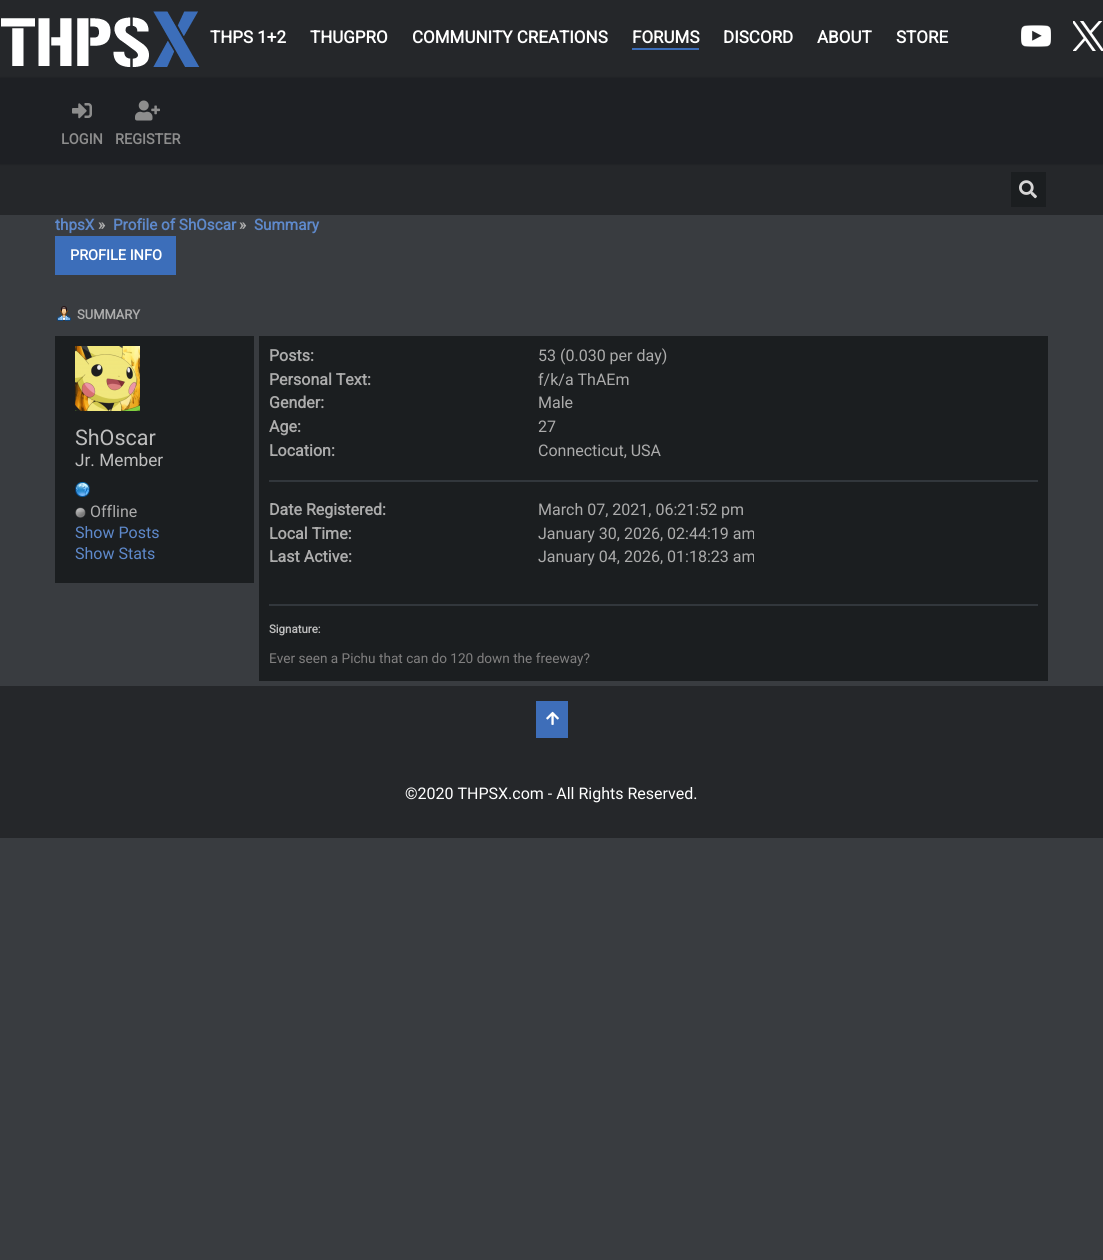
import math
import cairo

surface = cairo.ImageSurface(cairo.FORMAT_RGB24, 1103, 1260)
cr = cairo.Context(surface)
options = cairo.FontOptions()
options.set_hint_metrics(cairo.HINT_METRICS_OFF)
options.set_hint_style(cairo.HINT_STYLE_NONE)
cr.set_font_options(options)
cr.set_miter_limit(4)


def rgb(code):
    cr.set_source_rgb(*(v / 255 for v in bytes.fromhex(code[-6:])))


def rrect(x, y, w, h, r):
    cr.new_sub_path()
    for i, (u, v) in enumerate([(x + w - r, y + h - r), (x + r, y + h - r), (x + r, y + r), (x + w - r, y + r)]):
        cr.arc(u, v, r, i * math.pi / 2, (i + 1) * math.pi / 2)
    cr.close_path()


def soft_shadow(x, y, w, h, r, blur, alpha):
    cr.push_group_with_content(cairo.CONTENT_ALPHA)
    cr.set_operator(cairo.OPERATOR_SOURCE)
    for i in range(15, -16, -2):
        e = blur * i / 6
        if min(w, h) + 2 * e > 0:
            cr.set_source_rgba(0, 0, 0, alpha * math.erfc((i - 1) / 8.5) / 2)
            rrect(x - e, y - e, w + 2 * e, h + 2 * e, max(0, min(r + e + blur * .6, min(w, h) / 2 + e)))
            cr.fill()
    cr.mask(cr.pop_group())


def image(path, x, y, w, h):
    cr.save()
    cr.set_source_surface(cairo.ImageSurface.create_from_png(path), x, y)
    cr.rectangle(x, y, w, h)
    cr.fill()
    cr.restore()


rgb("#393c40")
cr.paint()
rgb("#25272a")
cr.rectangle(0, 0, 1103, 78)
cr.fill()
image("img/1.png", 1, 11, 199, 56)
rgb("#3c6eba")
cr.rectangle(632, 48, 67, 2)
cr.fill()
image("img/2.png", 1021, 25, 30, 22)
image("img/3.png", 1073, 21, 30, 30)
rgb("#25272a")
cr.rectangle(0, 164, 1103, 51)
cr.fill()
rgb("#000000")
soft_shadow(0, 78, 1103, 86, 0, 1, 0.3)
rgb("#1e2024")
cr.rectangle(0, 78, 1103, 86)
cr.fill()
image("img/4.png", 72, 103, 20, 16)
image("img/5.png", 135, 100, 25, 21)
rgb("#1b1e20")
cr.rectangle(1011, 172, 35, 35)
cr.fill()
image("img/6.png", 1019, 180, 18, 19)
rgb("#3c6eba")
cr.rectangle(55, 236, 121, 39)
cr.fill()
image("img/7.png", 57, 306, 14, 15)
rgb("#1b1e20")
cr.rectangle(55, 336, 199, 247)
cr.fill()
image("img/8.png", 75, 346, 65, 65)
image("img/9.png", 75, 482, 15, 15)
image("img/10.png", 75, 507, 11, 11)
for x, y, w, h, color in [
    (259, 336, 789, 345, "#1b1e20"),
    (269, 480, 769, 2, "#32373c"),
    (269, 604, 769, 2, "#32373c"),
    (0, 686, 1103, 152, "#25272a"),
    (536, 701, 32, 37, "#3e6eb9"),
]:
    rgb(color)
    cr.rectangle(x, y, w, h)
    cr.fill()
image("img/11.png", 546, 711, 13, 14)
cr.select_font_face("Roboto", cairo.FONT_SLANT_NORMAL, cairo.FONT_WEIGHT_BOLD)
cr.set_font_size(17)
rgb("#ffffff")
for x, y, s in [
    (210, 43, "THPS 1+2"),
    (310, 43, "THUGPRO"),
    (412, 43, "COMMUNITY CREATIONS"),
    (632, 43, "FORUMS"),
    (723, 43, "DISCORD"),
    (817, 43, "ABOUT"),
    (896, 43, "STORE"),
]:
    cr.move_to(x, y)
    cr.show_text(s)
cr.set_font_size(14.5)
rgb("#8d8d8d")
cr.move_to(61, 144)
cr.show_text("LOGIN")
cr.move_to(115, 144)
cr.show_text("REGISTER")
cr.set_font_size(15.25)
rgb("#5e89cb")
cr.move_to(55, 230)
cr.show_text("thpsX")
rgb("#acacac")
cr.move_to(98, 230)
cr.show_text("»")
rgb("#5e89cb")
cr.move_to(113, 230)
cr.show_text("Profile of ShOscar")
rgb("#acacac")
cr.move_to(239, 230)
cr.show_text("»")
rgb("#5e89cb")
cr.move_to(254, 230)
cr.show_text("Summary")
cr.set_font_size(14.5)
rgb("#ffffff")
cr.move_to(70, 260)
cr.show_text("PROFILE INFO")
cr.set_font_size(13)
rgb("#acacac")
cr.move_to(77, 319)
cr.show_text("SUMMARY")
cr.select_font_face("Roboto")
cr.set_font_size(21.5)
rgb("#bebebe")
cr.move_to(75, 445)
cr.show_text("ShOscar")
cr.set_font_size(17.25)
cr.move_to(75, 466)
cr.show_text("Jr. Member")
cr.set_font_size(16)
rgb("#acacac")
cr.move_to(90, 517)
cr.show_text("Offline")
rgb("#5e89cb")
cr.move_to(75, 538)
cr.show_text("Show Posts")
cr.move_to(75, 559)
cr.show_text("Show Stats")
cr.select_font_face("Roboto", cairo.FONT_SLANT_NORMAL, cairo.FONT_WEIGHT_BOLD)
rgb("#acacac")
cr.move_to(269, 361)
cr.show_text("Posts:")
cr.select_font_face("Roboto")
cr.move_to(538, 361)
cr.show_text("53 (0.030 per day)")
cr.select_font_face("Roboto", cairo.FONT_SLANT_NORMAL, cairo.FONT_WEIGHT_BOLD)
cr.move_to(269, 385)
cr.show_text("Personal Text:")
cr.select_font_face("Roboto")
cr.move_to(538, 385)
cr.show_text("f/k/a ThAEm")
cr.select_font_face("Roboto", cairo.FONT_SLANT_NORMAL, cairo.FONT_WEIGHT_BOLD)
cr.move_to(269, 408)
cr.show_text("Gender:")
cr.select_font_face("Roboto")
cr.move_to(538, 408)
cr.show_text("Male")
cr.select_font_face("Roboto", cairo.FONT_SLANT_NORMAL, cairo.FONT_WEIGHT_BOLD)
cr.move_to(269, 432)
cr.show_text("Age:")
cr.select_font_face("Roboto")
cr.move_to(538, 432)
cr.show_text("27")
cr.select_font_face("Roboto", cairo.FONT_SLANT_NORMAL, cairo.FONT_WEIGHT_BOLD)
cr.move_to(269, 456)
cr.show_text("Location:")
cr.select_font_face("Roboto")
cr.move_to(538, 456)
cr.show_text("Connecticut, USA")
cr.select_font_face("Roboto", cairo.FONT_SLANT_NORMAL, cairo.FONT_WEIGHT_BOLD)
cr.move_to(269, 515)
cr.show_text("Date Registered:")
cr.select_font_face("Roboto")
cr.move_to(538, 515)
cr.show_text("March 07, 2021, 06:21:52 pm")
cr.select_font_face("Roboto", cairo.FONT_SLANT_NORMAL, cairo.FONT_WEIGHT_BOLD)
cr.move_to(269, 539)
cr.show_text("Local Time:")
cr.select_font_face("Roboto")
cr.move_to(538, 539)
cr.show_text("January 30, 2026, 02:44:19 am")
cr.select_font_face("Roboto", cairo.FONT_SLANT_NORMAL, cairo.FONT_WEIGHT_BOLD)
cr.move_to(269, 562)
cr.show_text("Last Active:")
cr.select_font_face("Roboto")
cr.move_to(538, 562)
cr.show_text("January 04, 2026, 01:18:23 am")
cr.select_font_face("Roboto", cairo.FONT_SLANT_NORMAL, cairo.FONT_WEIGHT_BOLD)
cr.set_font_size(11.5)
rgb("#bebebe")
cr.move_to(269, 633)
cr.show_text("Signature:")
cr.select_font_face("Roboto")
cr.set_font_size(13.6)
rgb("#818080")
cr.move_to(269, 663)
cr.show_text("Ever seen a Pichu that can do 120 down the freeway?")
cr.set_font_size(16)
rgb("#ffffff")
cr.move_to(405, 799)
cr.show_text("©2020 THPSX.com - All Rights Reserved.")
surface.write_to_png("page.png")
